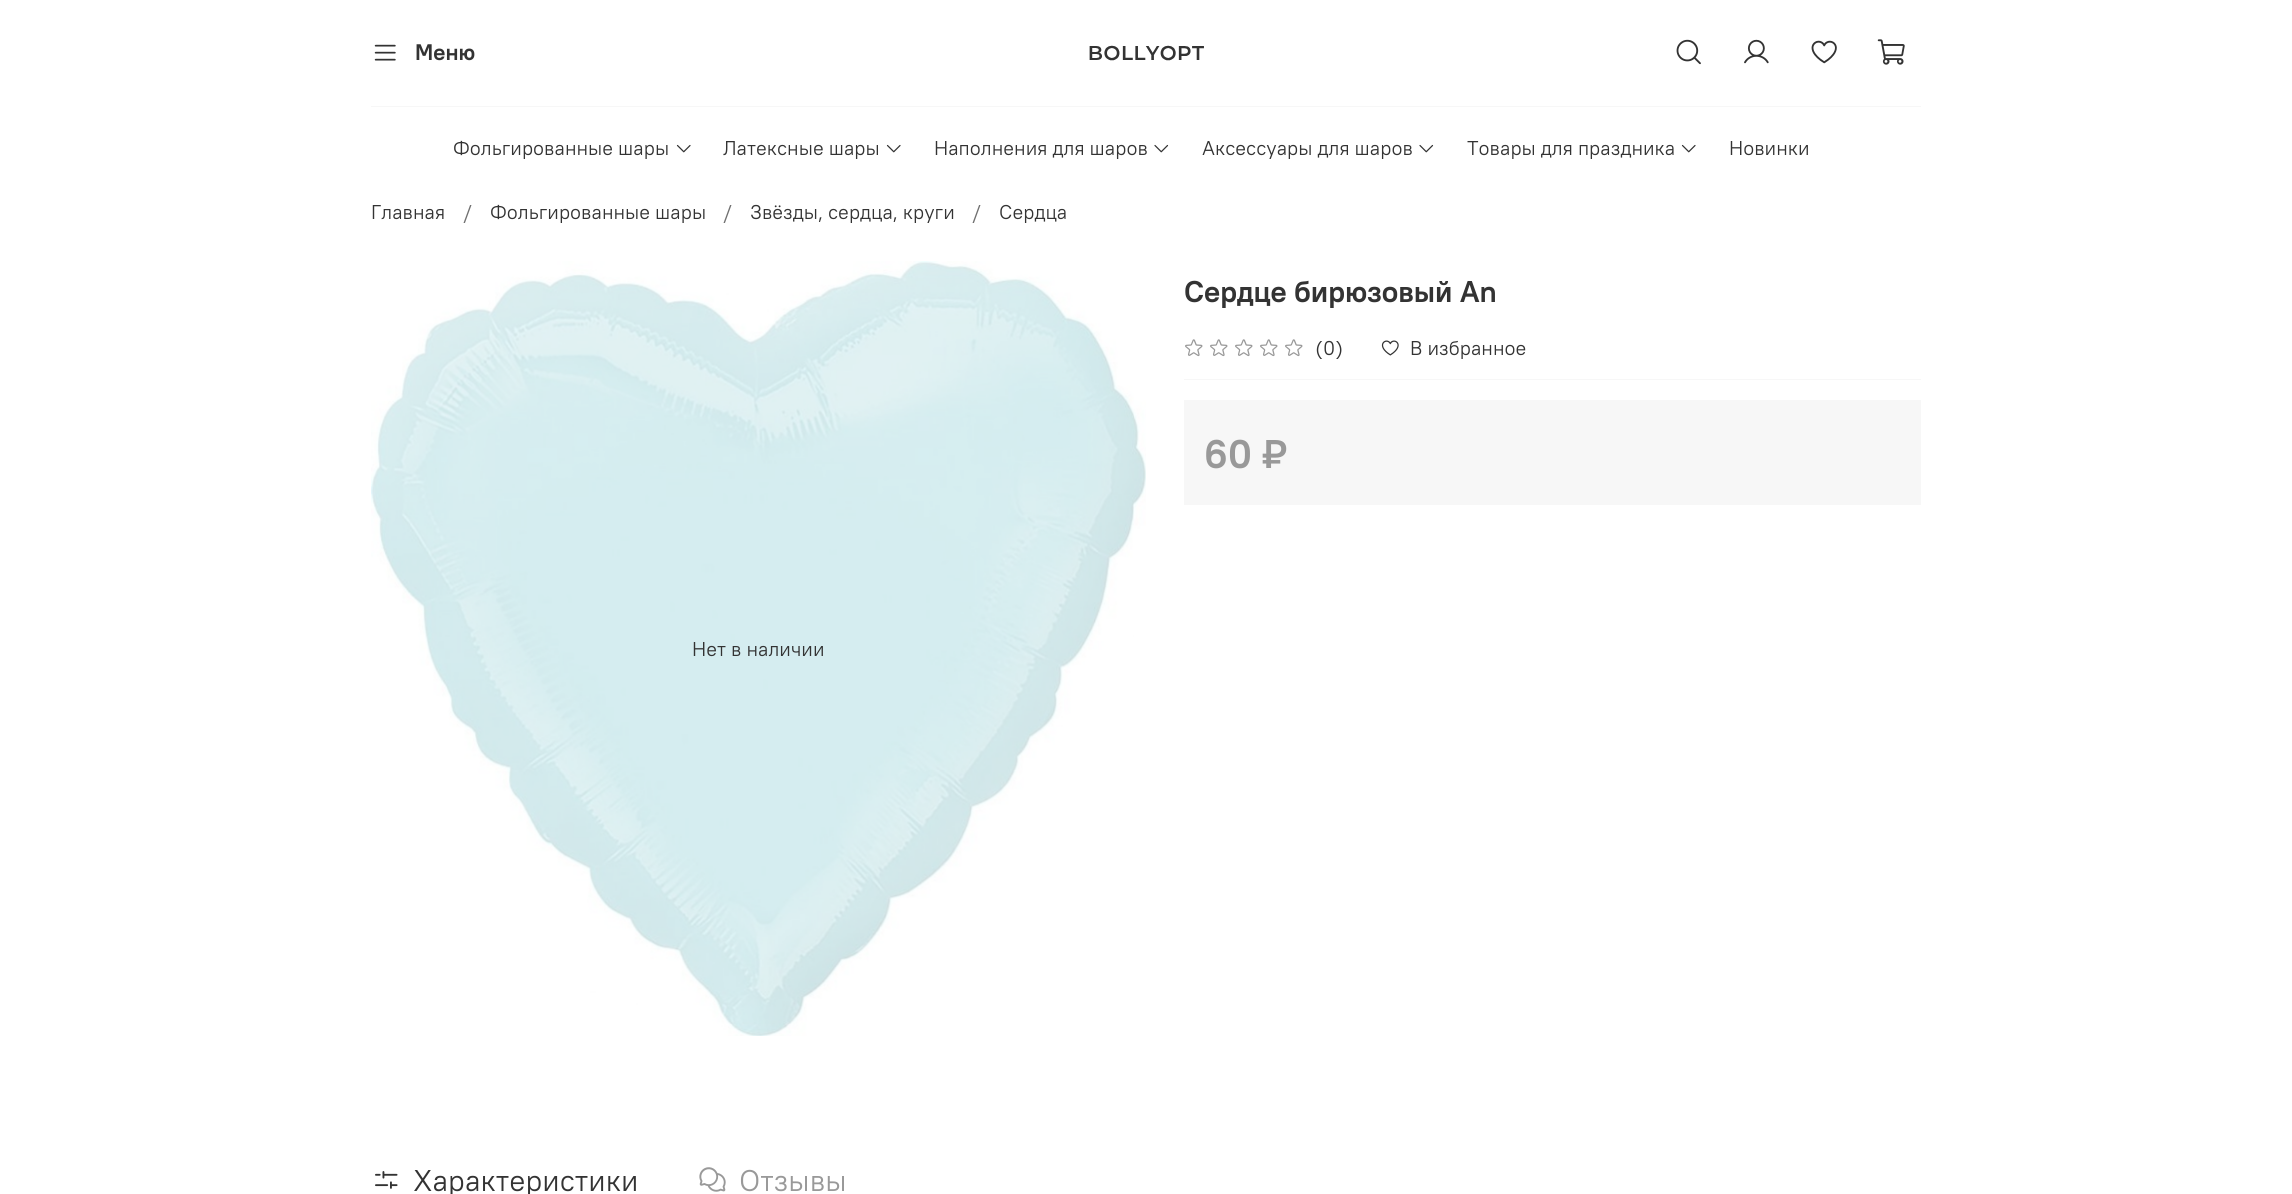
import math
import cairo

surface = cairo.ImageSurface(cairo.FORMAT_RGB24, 2292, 1194)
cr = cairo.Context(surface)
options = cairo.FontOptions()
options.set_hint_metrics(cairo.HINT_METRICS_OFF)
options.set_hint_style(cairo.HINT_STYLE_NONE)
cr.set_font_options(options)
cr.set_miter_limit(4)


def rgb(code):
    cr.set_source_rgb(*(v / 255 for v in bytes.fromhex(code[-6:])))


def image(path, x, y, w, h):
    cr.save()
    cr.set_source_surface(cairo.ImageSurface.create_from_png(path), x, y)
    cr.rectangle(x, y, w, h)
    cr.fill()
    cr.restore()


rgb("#ffffff")
cr.paint()
image("img/1.png", 374, 44, 22, 17)
image("img/2.png", 1089, 45, 115, 16)
image("img/3.png", 1676, 39, 25, 26)
image("img/4.png", 1744, 39, 25, 25)
image("img/5.png", 1811, 40, 26, 24)
image("img/6.png", 1877, 39, 28, 26)
rgb("#f7f7f7")
cr.rectangle(371, 106, 1550, 1)
cr.fill()
image("img/7.png", 676, 144, 15, 9)
image("img/7.png", 886, 144, 15, 9)
image("img/8.png", 1154, 144, 15, 9)
image("img/8.png", 1419, 144, 15, 9)
image("img/7.png", 1681, 144, 15, 9)
cr.rectangle(1184, 379, 737, 1)
cr.fill()
image("img/9.png", 1185, 339, 18, 18)
image("img/9.png", 1210, 339, 18, 18)
image("img/9.png", 1235, 339, 18, 18)
image("img/9.png", 1260, 339, 18, 18)
image("img/9.png", 1285, 339, 18, 18)
image("img/10.png", 1381, 340, 18, 16)
cr.rectangle(1184, 400, 737, 105)
cr.fill()
image("img/11.png", 371, 261, 775, 775)
image("img/12.png", 375, 1171, 23, 18)
image("img/13.png", 699, 1167, 27, 25)
cr.select_font_face("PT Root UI", cairo.FONT_SLANT_NORMAL, cairo.FONT_WEIGHT_BOLD)
cr.set_font_size(22.5)
rgb("#333333")
cr.move_to(415, 60)
cr.show_text("Меню")
cr.select_font_face("PT Root UI")
cr.set_font_size(20)
for x, y, s in [
    (453, 155, "Фольгированные шары"),
    (723, 155, "Латексные шары"),
    (934, 155, "Наполнения для шаров"),
    (1202, 155, "Аксессуары для шаров"),
    (1467, 155, "Товары для праздника"),
    (1729, 155, "Новинки"),
    (371, 219, "Главная"),
]:
    cr.move_to(x, y)
    cr.show_text(s)
rgb("#707070")
cr.move_to(463, 219)
cr.show_text("/")
rgb("#333333")
cr.move_to(490, 219)
cr.show_text("Фольгированные шары")
rgb("#707070")
cr.move_to(723, 219)
cr.show_text("/")
rgb("#333333")
cr.move_to(750, 219)
cr.show_text("Звёзды, сердца, круги")
rgb("#707070")
cr.move_to(972, 219)
cr.show_text("/")
rgb("#333333")
cr.move_to(999, 219)
cr.show_text("Сердца")
cr.select_font_face("PT Root UI", cairo.FONT_SLANT_NORMAL, cairo.FONT_WEIGHT_BOLD)
cr.set_font_size(30)
cr.move_to(1184, 302)
cr.show_text("Сердце бирюзовый An")
cr.select_font_face("PT Root UI")
cr.set_font_size(20)
cr.move_to(1315, 355)
cr.show_text("(0)")
cr.move_to(1410, 355)
cr.show_text("В избранное")
cr.select_font_face("PT Root UI", cairo.FONT_SLANT_NORMAL, cairo.FONT_WEIGHT_BOLD)
cr.set_font_size(40)
rgb("#999999")
cr.move_to(1204, 468)
cr.show_text("60 ₽")
cr.select_font_face("PT Root UI")
cr.set_font_size(20)
rgb("#333333")
cr.move_to(692, 656)
cr.show_text("Нет в наличии")
cr.set_font_size(30)
cr.move_to(413, 1191)
cr.show_text("Характеристики")
rgb("#999999")
cr.move_to(739, 1191)
cr.show_text("Отзывы")
surface.write_to_png("page.png")
